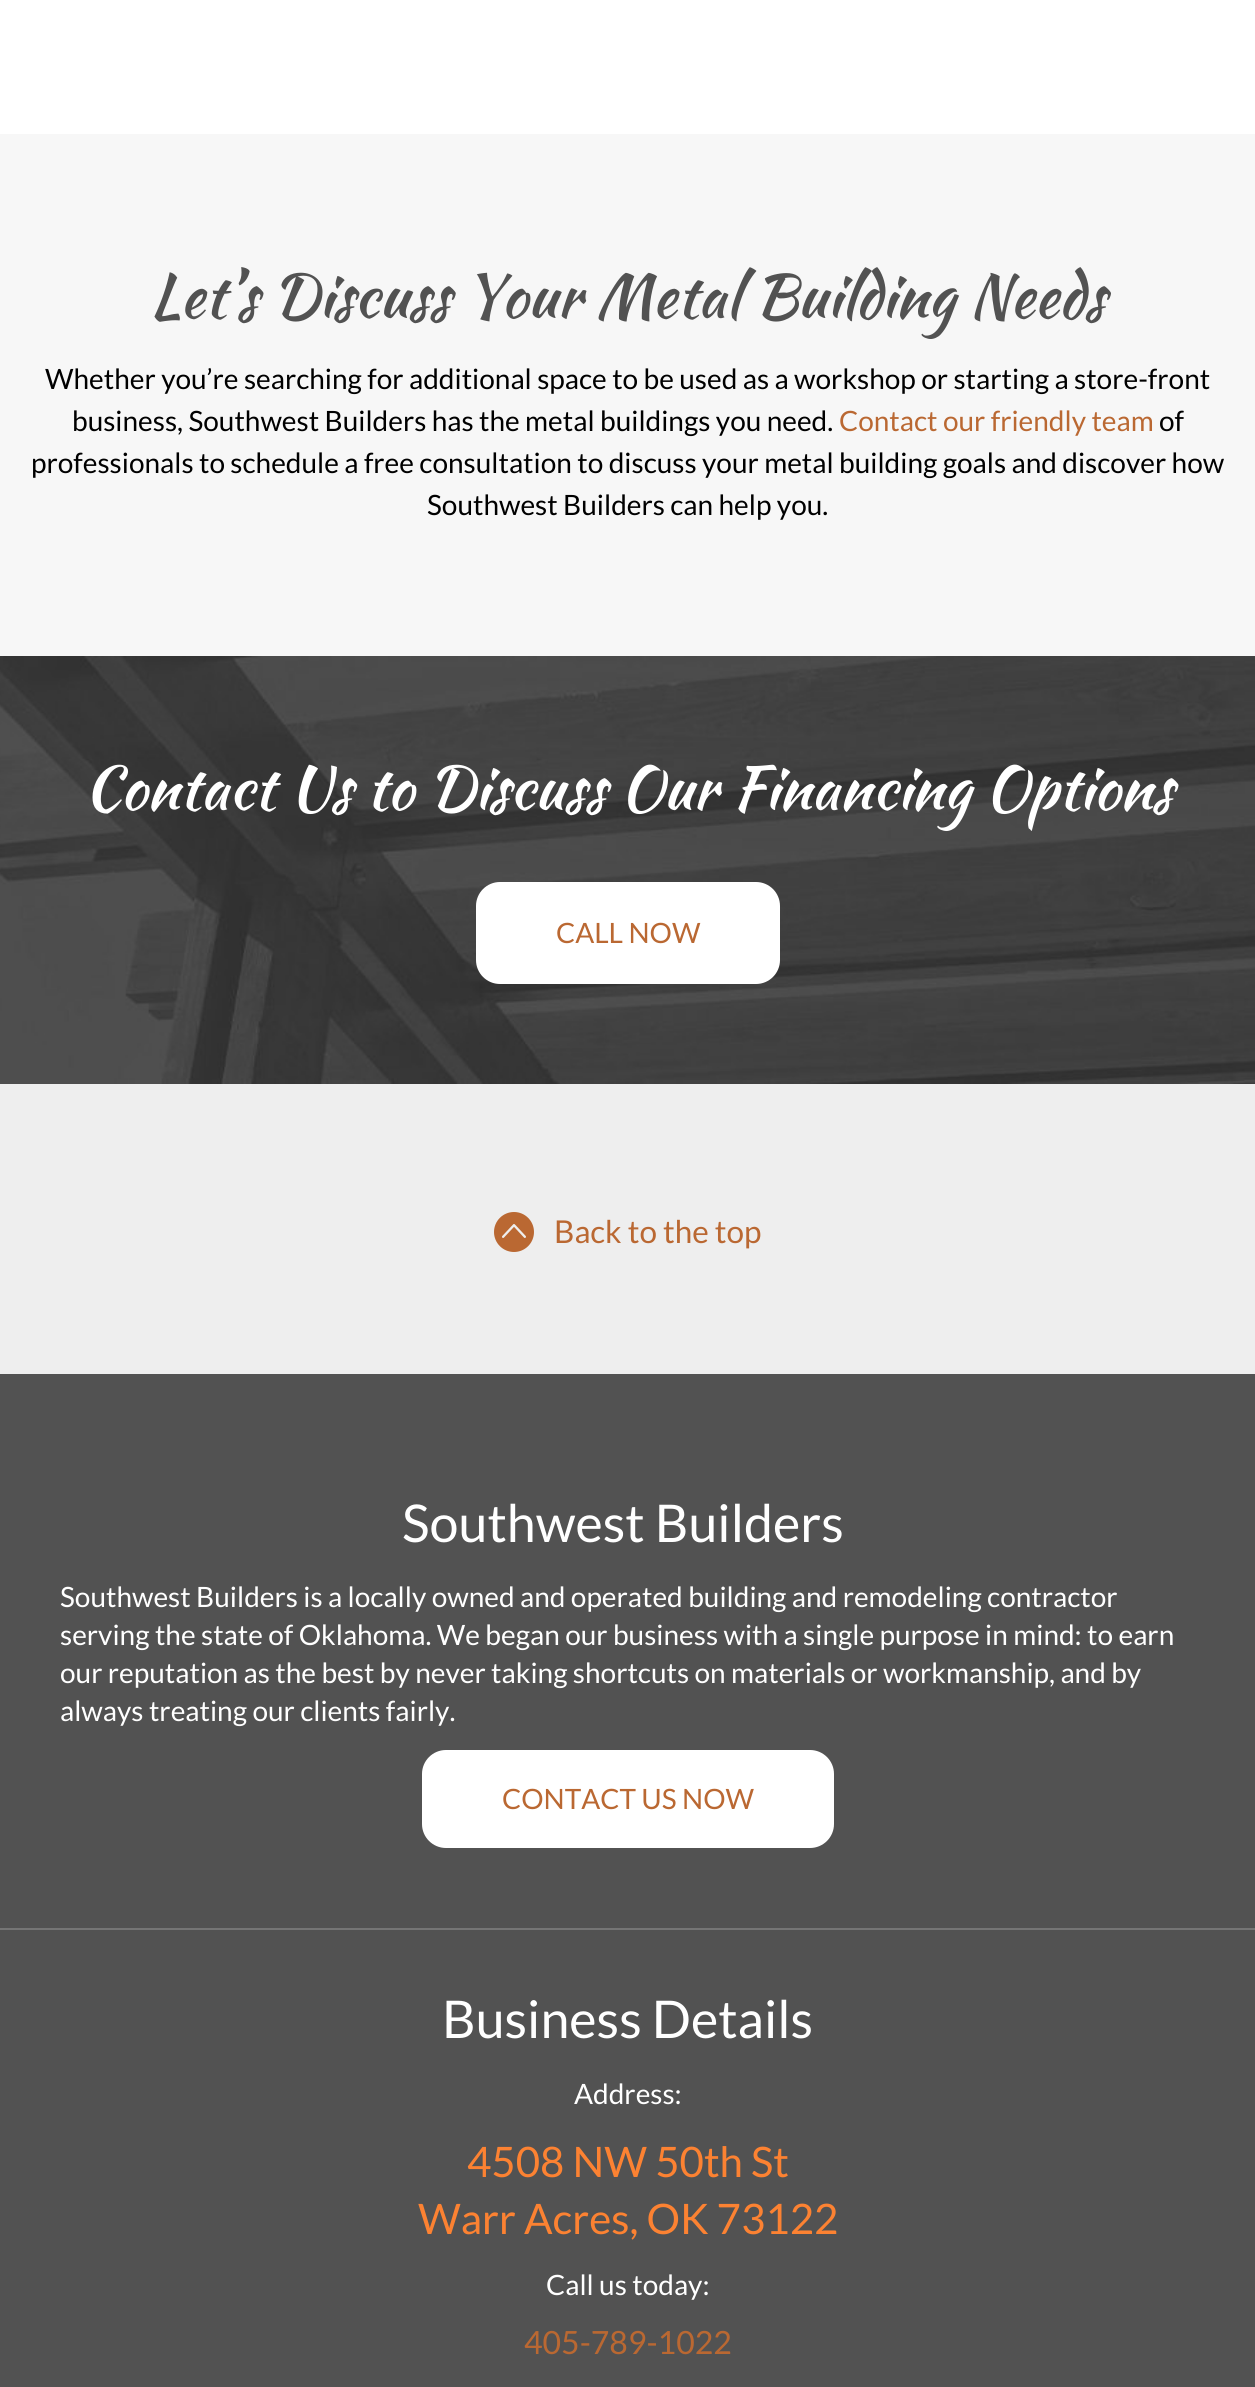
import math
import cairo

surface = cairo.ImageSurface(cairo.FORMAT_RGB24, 1255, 2387)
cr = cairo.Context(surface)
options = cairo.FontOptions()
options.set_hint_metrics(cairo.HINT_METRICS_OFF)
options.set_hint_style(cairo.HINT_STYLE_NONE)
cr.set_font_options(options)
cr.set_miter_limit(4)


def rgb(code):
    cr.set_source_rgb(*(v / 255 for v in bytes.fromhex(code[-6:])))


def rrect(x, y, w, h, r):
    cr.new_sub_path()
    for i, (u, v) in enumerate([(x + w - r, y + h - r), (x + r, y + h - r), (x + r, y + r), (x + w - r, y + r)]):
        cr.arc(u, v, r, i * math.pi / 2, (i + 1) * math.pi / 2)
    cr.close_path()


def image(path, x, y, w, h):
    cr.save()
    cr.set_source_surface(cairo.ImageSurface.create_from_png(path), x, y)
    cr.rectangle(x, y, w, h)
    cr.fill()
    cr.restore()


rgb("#ffffff")
cr.paint()
rgb("#f7f7f7")
cr.rectangle(0, 134, 1255, 522)
cr.fill()
image("img/1.png", 0, 656, 1255, 428)
rgb("#ffffff")
rrect(476, 882, 304, 102, 24)
cr.fill()
rgb("#eeeeee")
cr.rectangle(0, 1084, 1255, 290)
cr.fill()
rgb("#ba6832")
cr.arc(514, 1232, 20, 0, 2 * math.pi)
cr.fill()
image("img/2.png", 502, 1224, 24, 14)
rgb("#525252")
cr.rectangle(0, 1374, 1255, 1013)
cr.fill()
rgb("#ffffff")
rrect(422, 1750, 412, 98, 24)
cr.fill()
rgb("#757575")
cr.rectangle(0, 1928, 1255, 2)
cr.fill()
cr.select_font_face("Kaushan Script")
cr.set_font_size(60)
rgb("#525252")
cr.move_to(150, 317)
cr.show_text("Let’s Discuss Your Metal Building Needs")
cr.select_font_face("Lato")
cr.set_font_size(28)
rgb("#000000")
cr.move_to(45, 389)
cr.show_text("Whether you’re searching for additional space to be used as a workshop or starting a store-front")
cr.move_to(72, 431)
cr.show_text("business, Southwest Builders has the metal buildings you need.")
rgb("#ba6832")
cr.move_to(839, 431)
cr.show_text("Contact our friendly team")
rgb("#000000")
for x, y, s in [
    (1159, 431, "of"),
    (31, 473, "professionals to schedule a free consultation to discuss your metal building goals and discover how"),
    (427, 515, "Southwest Builders can help you."),
]:
    cr.move_to(x, y)
    cr.show_text(s)
cr.select_font_face("Kaushan Script")
cr.set_font_size(60)
rgb("#ffffff")
cr.move_to(84, 809)
cr.show_text("Contact Us to Discuss Our Financing Options")
cr.select_font_face("Lato")
cr.set_font_size(28)
rgb("#ba6832")
cr.move_to(556, 943)
cr.show_text("CALL NOW")
cr.set_font_size(31.5)
cr.move_to(554, 1243)
cr.show_text("Back to the top")
cr.set_font_size(52)
rgb("#ffffff")
cr.move_to(402, 1542)
cr.show_text("Southwest Builders")
cr.set_font_size(28)
for x, y, s in [
    (60, 1607, "Southwest Builders is a locally owned and operated building and remodeling contractor"),
    (60, 1645, "serving the state of Oklahoma. We began our business with a single purpose in mind: to earn"),
    (60, 1683, "our reputation as the best by never taking shortcuts on materials or workmanship, and by"),
    (60, 1721, "always treating our clients fairly."),
]:
    cr.move_to(x, y)
    cr.show_text(s)
rgb("#ba6832")
cr.move_to(502, 1809)
cr.show_text("CONTACT US NOW")
cr.set_font_size(52)
rgb("#ffffff")
cr.move_to(442, 2038)
cr.show_text("Business Details")
cr.set_font_size(28)
cr.move_to(574, 2104)
cr.show_text("Address:")
cr.set_font_size(42)
rgb("#fc8232")
cr.move_to(467, 2177)
cr.show_text("4508 NW 50th St")
cr.move_to(418, 2234)
cr.show_text("Warr Acres, OK 73122")
cr.set_font_size(28)
rgb("#ffffff")
cr.move_to(546, 2295)
cr.show_text("Call us today:")
cr.set_font_size(32)
rgb("#ba6832")
cr.move_to(524, 2354)
cr.show_text("405-789-1022")
surface.write_to_png("page.png")
